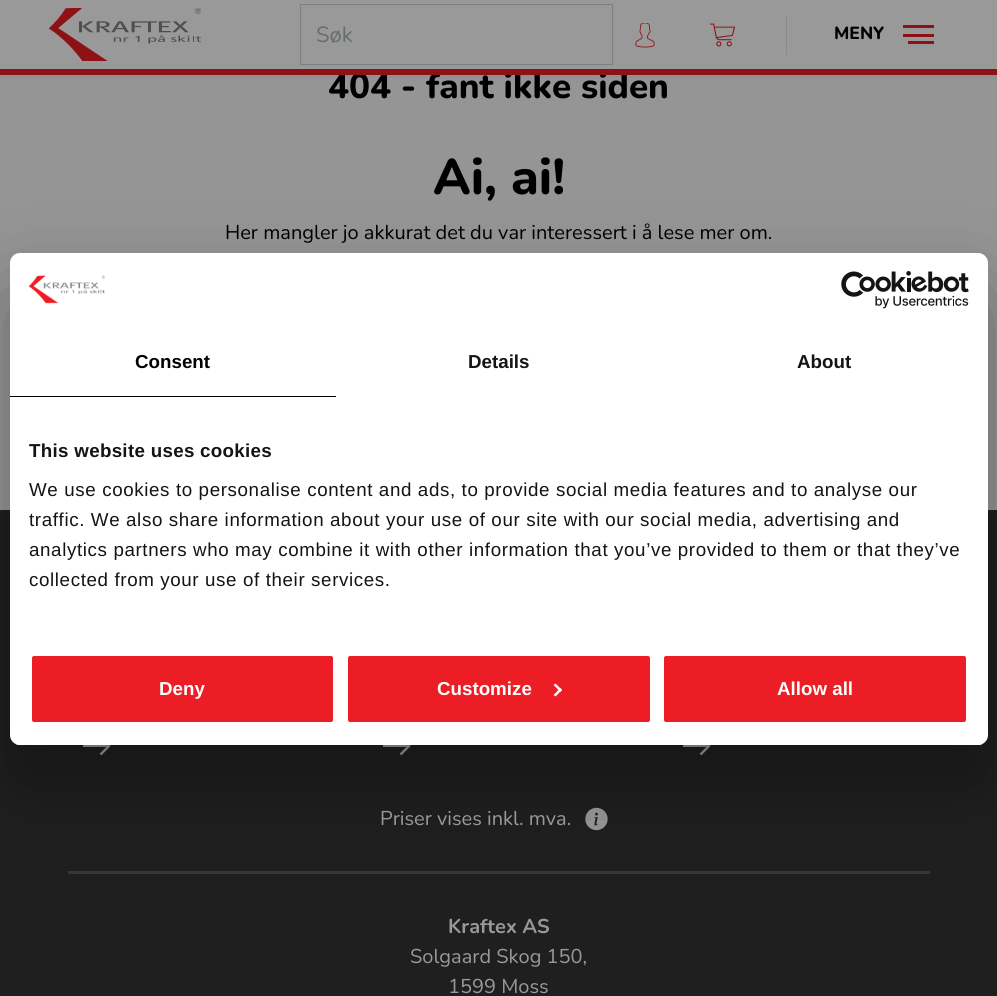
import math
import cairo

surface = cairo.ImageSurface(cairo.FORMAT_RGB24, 997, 996)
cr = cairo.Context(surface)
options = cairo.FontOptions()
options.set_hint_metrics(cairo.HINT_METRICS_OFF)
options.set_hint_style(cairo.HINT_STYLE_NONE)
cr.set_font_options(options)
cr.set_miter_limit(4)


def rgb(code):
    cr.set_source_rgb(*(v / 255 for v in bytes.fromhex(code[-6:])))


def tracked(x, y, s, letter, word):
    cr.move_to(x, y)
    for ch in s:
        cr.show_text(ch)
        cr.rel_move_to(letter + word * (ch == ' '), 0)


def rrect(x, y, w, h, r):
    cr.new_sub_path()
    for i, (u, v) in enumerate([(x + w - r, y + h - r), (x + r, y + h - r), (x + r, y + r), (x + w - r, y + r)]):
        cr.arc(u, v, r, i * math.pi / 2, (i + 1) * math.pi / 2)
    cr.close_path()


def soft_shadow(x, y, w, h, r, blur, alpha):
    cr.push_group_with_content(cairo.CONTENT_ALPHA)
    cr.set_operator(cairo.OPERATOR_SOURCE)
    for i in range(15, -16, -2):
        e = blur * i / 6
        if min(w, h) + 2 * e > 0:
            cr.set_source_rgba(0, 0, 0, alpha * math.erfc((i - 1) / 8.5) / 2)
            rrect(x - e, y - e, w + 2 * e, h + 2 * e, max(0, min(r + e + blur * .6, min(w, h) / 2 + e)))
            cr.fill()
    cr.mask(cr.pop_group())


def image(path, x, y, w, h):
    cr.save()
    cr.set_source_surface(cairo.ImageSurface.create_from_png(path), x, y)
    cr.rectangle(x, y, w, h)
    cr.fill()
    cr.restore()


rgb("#959595")
cr.paint()
rgb("#000000")
soft_shadow(0, 0, 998, 75, 0, 3, 0.1)
rgb("#999999")
cr.rectangle(0, 0, 997, 69)
cr.fill()
image("img/1.png", 49, 8, 152, 53)
cr.rectangle(300.5, 4.5, 312, 60)
rgb("#7c7f83")
cr.set_line_width(1)
cr.stroke()
image("img/2.png", 635, 23, 20, 25)
image("img/3.png", 710, 23, 25, 24)
for x, y, w, h, color in [
    (786, 15, 1, 40, "#8a8a8a"),
    (903, 34, 31, 3, "#8e1116"),
    (903, 25, 31, 3, "#8e1116"),
    (908, 41, 26, 3, "#8e1116"),
    (0, 510, 997, 486, "#1f1f1f"),
    (83, 745, 26, 2, "#999999"),
]:
    rgb(color)
    cr.rectangle(x, y, w, h)
    cr.fill()
cr.new_path()
cr.move_to(100.5, 737.5)
cr.line_to(109, 746)
cr.line_to(100.5, 754.5)
cr.set_line_width(2.4)
cr.stroke()
cr.rectangle(383, 745, 26, 2)
cr.fill()
cr.new_path()
cr.move_to(400.5, 737.5)
cr.line_to(409, 746)
cr.line_to(400.5, 754.5)
cr.stroke()
cr.rectangle(683, 745, 26, 2)
cr.fill()
cr.new_path()
cr.move_to(700.5, 737.5)
cr.line_to(709, 746)
cr.line_to(700.5, 754.5)
cr.stroke()
image("img/4.png", 585, 807, 23, 24)
rgb("#373737")
cr.rectangle(68, 871, 862, 3)
cr.fill()
rgb("#000000")
soft_shadow(10, 293, 978, 492, 10, 42.5, 0.3)
rgb("#ffffff")
rrect(10, 253, 978, 492, 10)
cr.fill()
image("img/5.png", 28, 275, 77, 29)
image("img/6.png", 841, 271, 128, 38)
rgb("#000000")
cr.rectangle(10, 396, 326, 1)
cr.fill()
cr.save()
rrect(10, 253, 978, 492, 10)
cr.clip()
rgb("#ffffff")
cr.rectangle(10, 744, 978, 1)
cr.fill()
cr.restore()
rgb("#ec1d24")
rrect(30.5, 654.5, 304, 69, 3.5)
cr.fill_preserve()
rgb("#ffffff")
cr.set_line_width(3)
cr.stroke()
rgb("#ec1d24")
rrect(346.5, 654.5, 305, 69, 3.5)
cr.fill_preserve()
rgb("#ffffff")
cr.stroke()
cr.new_path()
cr.move_to(555.5, 683.5)
cr.line_to(562, 690)
cr.line_to(560.5, 692)
cr.line_to(553.5, 685)
cr.close_path()
cr.fill()
cr.new_path()
cr.move_to(560.5, 688)
cr.line_to(562, 690)
cr.line_to(555.5, 696.5)
cr.line_to(553.5, 695)
cr.close_path()
cr.fill()
rgb("#ec1d24")
rrect(662.5, 654.5, 305, 69, 3.5)
cr.fill_preserve()
rgb("#ffffff")
cr.stroke()
cr.select_font_face("Nunito")
cr.set_font_size(22)
rgb("#686d71")
cr.move_to(316, 42)
cr.show_text("Søk")
cr.select_font_face("Nunito ExtraBold")
cr.set_font_size(17.5)
rgb("#000000")
cr.move_to(834, 39)
cr.show_text("MENY")
cr.set_font_size(35)
cr.move_to(328, 98)
cr.show_text("404 - fant ikke siden")
rgb("#8e1116")
cr.rectangle(0, 69, 997, 6)
cr.fill()
cr.set_font_size(50)
rgb("#000000")
cr.move_to(433, 194)
cr.show_text("Ai, ai!")
cr.select_font_face("Nunito")
cr.set_font_size(20)
cr.move_to(225, 239)
cr.show_text("Her mangler jo akkurat det du var interessert i å lese mer om.")
rgb("#999999")
cr.move_to(380, 825)
cr.show_text("Priser vises inkl. mva.")
cr.select_font_face("Nunito", cairo.FONT_SLANT_NORMAL, cairo.FONT_WEIGHT_BOLD)
cr.move_to(448, 933)
cr.show_text("Kraftex AS")
cr.select_font_face("Nunito")
cr.move_to(410, 963)
cr.show_text("Solgaard Skog 150,")
cr.move_to(448, 993)
cr.show_text("1599 Moss")
cr.select_font_face("Liberation Sans", cairo.FONT_SLANT_NORMAL, cairo.FONT_WEIGHT_BOLD)
cr.set_font_size(18.75)
rgb("#000000")
cr.move_to(135, 368)
cr.show_text("Consent")
rgb("#141414")
cr.move_to(468, 368)
cr.show_text("Details")
cr.move_to(797, 368)
cr.show_text("About")
tracked(29, 457, "This website uses cookies", 0.3, 0)
cr.select_font_face("Liberation Sans")
for x, y, s in [
    (29, 496, "We use cookies to personalise content and ads, to provide social media features and to analyse our"),
    (29, 526, "traffic. We also share information about your use of our site with our social media, advertising and"),
    (29, 556, "analytics partners who may combine it with other information that you’ve provided to them or that they’ve"),
    (29, 586, "collected from your use of their services."),
]:
    tracked(x, y, s, 0.62, 0)
cr.select_font_face("Liberation Sans", cairo.FONT_SLANT_NORMAL, cairo.FONT_WEIGHT_BOLD)
rgb("#ffffff")
for x, y, s in [
    (159, 695, "Deny"),
    (437, 695, "Customize"),
    (777, 695, "Allow all"),
]:
    cr.move_to(x, y)
    cr.show_text(s)
surface.write_to_png("page.png")
